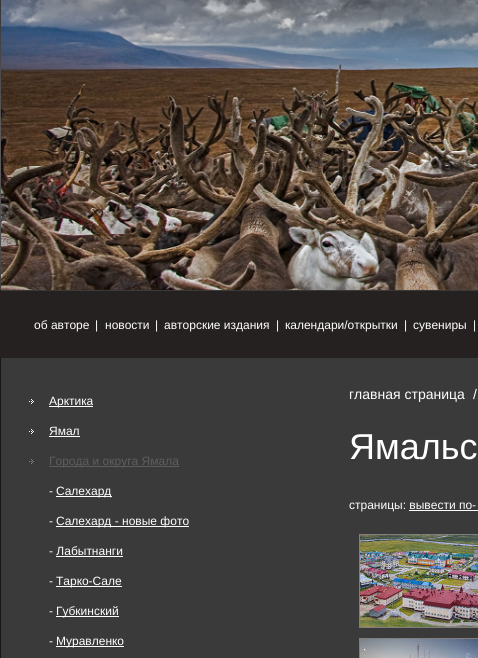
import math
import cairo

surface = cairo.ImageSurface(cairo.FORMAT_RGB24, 478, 658)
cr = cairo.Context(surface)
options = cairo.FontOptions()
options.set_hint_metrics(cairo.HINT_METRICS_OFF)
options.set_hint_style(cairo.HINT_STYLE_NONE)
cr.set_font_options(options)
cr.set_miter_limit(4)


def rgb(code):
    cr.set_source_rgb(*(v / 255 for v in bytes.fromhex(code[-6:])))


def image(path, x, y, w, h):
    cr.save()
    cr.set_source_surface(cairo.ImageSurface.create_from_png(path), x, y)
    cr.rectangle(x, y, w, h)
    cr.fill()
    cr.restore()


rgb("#161616")
cr.paint()
image("img/1.png", 0, 0, 1, 290)
image("img/2.png", 1, 0, 477, 290)
for x, y, w, h, color in [
    (0, 290, 478, 68, "#262121"),
    (1, 290, 477, 1, "#3a3a3a"),
    (1, 358, 477, 300, "#3a3a3a"),
]:
    rgb(color)
    cr.rectangle(x, y, w, h)
    cr.fill()
image("img/3.png", 29, 399, 5, 5)
rgb("#ffffff")
cr.rectangle(49, 406, 44, 1)
cr.fill()
image("img/3.png", 29, 429, 5, 5)
cr.rectangle(49, 436, 31, 1)
cr.fill()
image("img/4.png", 29, 459, 5, 5)
for x, y, w, h, color in [
    (49, 466, 130, 1, "#5d5d5d"),
    (56, 496, 56, 1, "#ffffff"),
    (56, 526, 133, 1, "#ffffff"),
    (56, 556, 67, 1, "#ffffff"),
    (56, 586, 66, 1, "#ffffff"),
    (56, 616, 63, 1, "#ffffff"),
    (56, 646, 68, 1, "#ffffff"),
    (409, 510, 69, 1, "#ffffff"),
]:
    rgb(color)
    cr.rectangle(x, y, w, h)
    cr.fill()
cr.rectangle(359.5, 534.5, 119, 93)
rgb("#817e80")
cr.set_line_width(1)
cr.stroke()
image("img/5.png", 360, 535, 118, 92)
cr.rectangle(359.5, 638.5, 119, 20)
cr.stroke()
image("img/6.png", 360, 639, 118, 19)
cr.select_font_face("Liberation Sans")
cr.set_font_size(12)
rgb("#ffffff")
for x, y, s in [
    (34, 329, "об авторе"),
    (95, 329, "|"),
    (105, 329, "новости"),
    (155, 329, "|"),
    (164, 329, "авторские издания"),
    (276, 329, "|"),
    (285, 329, "календари/открытки"),
    (404, 329, "|"),
    (413, 329, "сувениры"),
    (473, 329, "|"),
    (49, 405, "Арктика"),
    (49, 435, "Ямал"),
]:
    cr.move_to(x, y)
    cr.show_text(s)
rgb("#5d5d5d")
cr.move_to(49, 465)
cr.show_text("Города и округа Ямала")
rgb("#ffffff")
for x, y, s in [
    (49, 495, "-"),
    (56, 495, "Салехард"),
    (49, 525, "-"),
    (56, 525, "Салехард - новые фото"),
    (49, 555, "- Лабытнанги"),
    (49, 585, "-"),
    (56, 585, "Тарко-Сале"),
    (49, 615, "-"),
    (56, 615, "Губкинский"),
    (49, 645, "-"),
    (56, 645, "Муравленко"),
]:
    cr.move_to(x, y)
    cr.show_text(s)
cr.set_font_size(14)
cr.move_to(349, 399)
cr.show_text("главная страница")
cr.move_to(473, 399)
cr.show_text("/")
cr.set_font_size(36)
cr.move_to(349, 459)
cr.show_text("Ямальс")
cr.set_font_size(12)
cr.move_to(349, 509)
cr.show_text("страницы: вывести по-")
surface.write_to_png("page.png")
